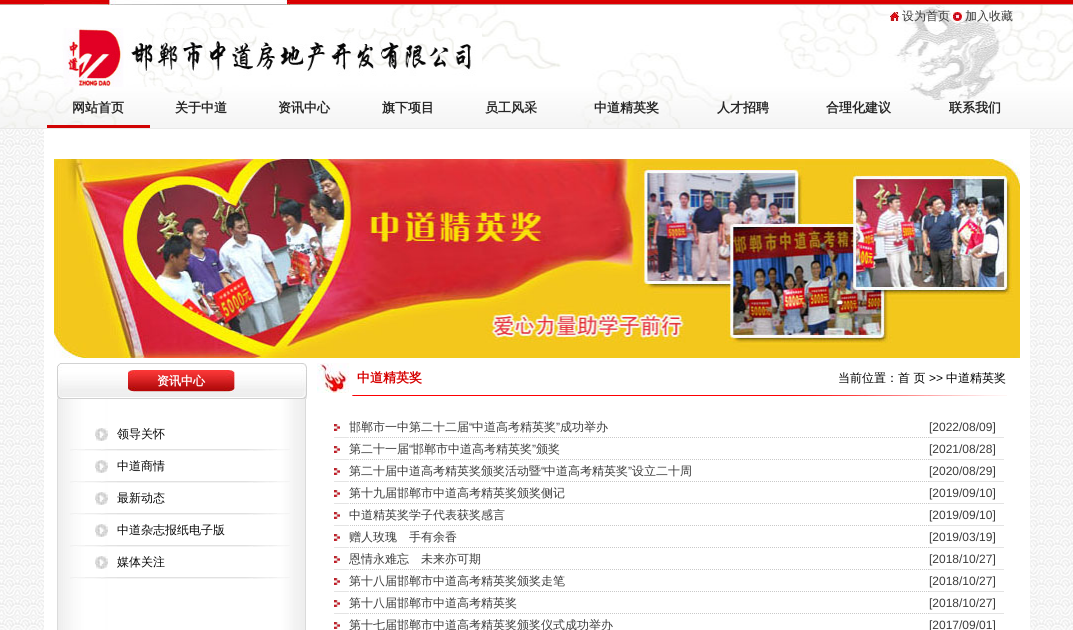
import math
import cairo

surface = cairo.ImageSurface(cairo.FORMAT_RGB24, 1073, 630)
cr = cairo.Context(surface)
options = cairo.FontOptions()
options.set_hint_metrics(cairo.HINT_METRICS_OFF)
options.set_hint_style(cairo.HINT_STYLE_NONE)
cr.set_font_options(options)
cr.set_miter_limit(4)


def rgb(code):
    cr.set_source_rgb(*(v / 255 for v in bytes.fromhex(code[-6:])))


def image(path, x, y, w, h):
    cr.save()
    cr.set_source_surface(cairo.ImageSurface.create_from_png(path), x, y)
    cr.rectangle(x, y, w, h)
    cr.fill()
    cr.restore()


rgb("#ffffff")
cr.paint()
image("img/1.png", 0, 129, 1073, 501)
image("img/2.png", 0, 0, 1073, 5)
image("img/3.png", 44, 0, 246, 5)
rgb("#e9e9e9")
cr.rectangle(0, 128, 1073, 1)
cr.fill()
image("img/4.png", 0, 5, 1073, 123)
image("img/5.png", 890, 12, 9, 9)
image("img/6.png", 953, 12, 9, 9)
image("img/7.png", 55, 28, 427, 59)
rgb("#d10303")
cr.rectangle(47, 125, 103, 3)
cr.fill()
rgb("#ffffff")
cr.rectangle(44, 129, 986, 501)
cr.fill()
image("img/8.png", 54, 159, 966, 199)
image("img/9.png", 57, 363, 5, 36)
image("img/10.png", 62, 363, 239, 36)
image("img/11.png", 128, 370, 107, 22)
image("img/12.png", 301, 363, 6, 36)
image("img/13.png", 57, 399, 249, 231)
image("img/14.png", 95, 428, 13, 13)
image("img/15.png", 70, 449, 220, 2)
image("img/14.png", 95, 460, 13, 13)
image("img/15.png", 70, 481, 220, 2)
image("img/14.png", 95, 492, 13, 13)
image("img/15.png", 70, 513, 220, 2)
image("img/14.png", 95, 524, 13, 13)
image("img/15.png", 70, 545, 220, 2)
image("img/14.png", 95, 556, 13, 13)
image("img/15.png", 70, 577, 220, 2)
image("img/16.png", 317, 363, 33, 30)
image("img/17.png", 352, 395, 655, 1)
rgb("#e4e4e4")
cr.rectangle(334, 437, 15, 1)
cr.fill()
image("img/18.png", 334, 424, 6, 7)
image("img/19.png", 350, 437, 579, 1)
cr.rectangle(929, 437, 75, 1)
cr.fill()
cr.rectangle(334, 459, 15, 1)
cr.fill()
image("img/18.png", 334, 446, 6, 7)
image("img/19.png", 350, 459, 579, 1)
cr.rectangle(929, 459, 75, 1)
cr.fill()
cr.rectangle(334, 481, 15, 1)
cr.fill()
image("img/18.png", 334, 468, 6, 7)
image("img/19.png", 350, 481, 579, 1)
cr.rectangle(929, 481, 75, 1)
cr.fill()
cr.rectangle(334, 503, 15, 1)
cr.fill()
image("img/18.png", 334, 490, 6, 7)
image("img/19.png", 350, 503, 579, 1)
cr.rectangle(929, 503, 75, 1)
cr.fill()
cr.rectangle(334, 525, 15, 1)
cr.fill()
image("img/18.png", 334, 512, 6, 7)
image("img/19.png", 350, 525, 579, 1)
cr.rectangle(929, 525, 75, 1)
cr.fill()
cr.rectangle(334, 547, 15, 1)
cr.fill()
image("img/18.png", 334, 534, 6, 7)
image("img/19.png", 350, 547, 579, 1)
cr.rectangle(929, 547, 75, 1)
cr.fill()
cr.rectangle(334, 569, 15, 1)
cr.fill()
image("img/18.png", 334, 556, 6, 7)
image("img/19.png", 350, 569, 579, 1)
cr.rectangle(929, 569, 75, 1)
cr.fill()
cr.rectangle(334, 591, 15, 1)
cr.fill()
image("img/18.png", 334, 578, 6, 7)
image("img/19.png", 350, 591, 579, 1)
cr.rectangle(929, 591, 75, 1)
cr.fill()
cr.rectangle(334, 613, 15, 1)
cr.fill()
image("img/18.png", 334, 600, 6, 7)
image("img/19.png", 350, 613, 579, 1)
cr.rectangle(929, 613, 75, 1)
cr.fill()
image("img/18.png", 334, 622, 6, 7)
cr.select_font_face("WenQuanYi Zen Hei Medium")
cr.set_font_size(12)
rgb("#3b3b3b")
cr.move_to(902, 20)
cr.show_text("设为首页")
cr.move_to(965, 20)
cr.show_text("加入收藏")
cr.select_font_face("WenQuanYi Zen Hei", cairo.FONT_SLANT_NORMAL, cairo.FONT_WEIGHT_BOLD)
cr.set_font_size(13)
rgb("#262626")
for x, y, s in [
    (72, 112, "网站首页"),
    (175, 112, "关于中道"),
    (278, 112, "资讯中心"),
    (382, 112, "旗下项目"),
    (485, 112, "员工风采"),
    (594, 112, "中道精英奖"),
    (717, 112, "人才招聘"),
    (826, 112, "合理化建议"),
    (949, 112, "联系我们"),
]:
    cr.move_to(x, y)
    cr.show_text(s)
cr.set_font_size(12)
rgb("#ffffff")
cr.move_to(157, 385)
cr.show_text("资讯中心")
cr.select_font_face("WenQuanYi Zen Hei Medium")
rgb("#080808")
for x, y, s in [
    (117, 438, "领导关怀"),
    (117, 470, "中道商情"),
    (117, 502, "最新动态"),
    (117, 534, "中道杂志报纸电子版"),
    (117, 566, "媒体关注"),
]:
    cr.move_to(x, y)
    cr.show_text(s)
cr.select_font_face("WenQuanYi Zen Hei", cairo.FONT_SLANT_NORMAL, cairo.FONT_WEIGHT_BOLD)
cr.set_font_size(13)
rgb("#d60000")
cr.move_to(357, 382)
cr.show_text("中道精英奖")
cr.select_font_face("WenQuanYi Zen Hei Medium")
cr.set_font_size(12)
rgb("#000000")
cr.move_to(838, 382)
cr.show_text("当前位置：")
cr.move_to(898, 382)
cr.show_text("首 页")
cr.select_font_face("Liberation Sans")
cr.move_to(929, 382)
cr.show_text(">>")
cr.select_font_face("WenQuanYi Zen Hei Medium")
cr.move_to(946, 382)
cr.show_text("中道精英奖")
rgb("#3b3b3b")
cr.move_to(349, 431)
cr.show_text("邯郸市一中第二十二届")
cr.select_font_face("Liberation Sans")
cr.move_to(469, 431)
cr.show_text("“")
cr.select_font_face("WenQuanYi Zen Hei Medium")
cr.move_to(472, 431)
cr.show_text("中道高考精英奖")
cr.select_font_face("Liberation Sans")
cr.move_to(556, 431)
cr.show_text("”")
cr.select_font_face("WenQuanYi Zen Hei Medium")
cr.move_to(560, 431)
cr.show_text("成功举办")
cr.select_font_face("Liberation Sans")
cr.move_to(929, 431)
cr.show_text("[2022/08/09]")
cr.select_font_face("WenQuanYi Zen Hei Medium")
cr.move_to(349, 453)
cr.show_text("第二十一届")
cr.select_font_face("Liberation Sans")
cr.move_to(409, 453)
cr.show_text("“")
cr.select_font_face("WenQuanYi Zen Hei Medium")
cr.move_to(412, 453)
cr.show_text("邯郸市中道高考精英奖")
cr.select_font_face("Liberation Sans")
cr.move_to(532, 453)
cr.show_text("”")
cr.select_font_face("WenQuanYi Zen Hei Medium")
cr.move_to(536, 453)
cr.show_text("颁奖")
cr.select_font_face("Liberation Sans")
cr.move_to(929, 453)
cr.show_text("[2021/08/28]")
cr.select_font_face("WenQuanYi Zen Hei Medium")
cr.move_to(349, 475)
cr.show_text("第二十届中道高考精英奖颁奖活动暨")
cr.select_font_face("Liberation Sans")
cr.move_to(541, 475)
cr.show_text("“")
cr.select_font_face("WenQuanYi Zen Hei Medium")
cr.move_to(544, 475)
cr.show_text("中道高考精英奖")
cr.select_font_face("Liberation Sans")
cr.move_to(628, 475)
cr.show_text("”")
cr.select_font_face("WenQuanYi Zen Hei Medium")
cr.move_to(632, 475)
cr.show_text("设立二十周")
cr.select_font_face("Liberation Sans")
cr.move_to(929, 475)
cr.show_text("[2020/08/29]")
cr.select_font_face("WenQuanYi Zen Hei Medium")
cr.move_to(349, 497)
cr.show_text("第十九届邯郸市中道高考精英奖颁奖侧记")
cr.select_font_face("Liberation Sans")
cr.move_to(929, 497)
cr.show_text("[2019/09/10]")
cr.select_font_face("WenQuanYi Zen Hei Medium")
cr.move_to(349, 519)
cr.show_text("中道精英奖学子代表获奖感言")
cr.select_font_face("Liberation Sans")
cr.move_to(929, 519)
cr.show_text("[2019/09/10]")
cr.select_font_face("WenQuanYi Zen Hei Medium")
cr.move_to(349, 541)
cr.show_text("赠人玫瑰　手有余香")
cr.select_font_face("Liberation Sans")
cr.move_to(929, 541)
cr.show_text("[2019/03/19]")
cr.select_font_face("WenQuanYi Zen Hei Medium")
cr.move_to(349, 563)
cr.show_text("恩情永难忘　未来亦可期")
cr.select_font_face("Liberation Sans")
cr.move_to(929, 563)
cr.show_text("[2018/10/27]")
cr.select_font_face("WenQuanYi Zen Hei Medium")
cr.move_to(349, 585)
cr.show_text("第十八届邯郸市中道高考精英奖颁奖走笔")
cr.select_font_face("Liberation Sans")
cr.move_to(929, 585)
cr.show_text("[2018/10/27]")
cr.select_font_face("WenQuanYi Zen Hei Medium")
cr.move_to(349, 607)
cr.show_text("第十八届邯郸市中道高考精英奖")
cr.select_font_face("Liberation Sans")
cr.move_to(929, 607)
cr.show_text("[2018/10/27]")
cr.select_font_face("WenQuanYi Zen Hei Medium")
cr.move_to(349, 629)
cr.show_text("第十七届邯郸市中道高考精英奖颁奖仪式成功举办")
cr.select_font_face("Liberation Sans")
cr.move_to(929, 629)
cr.show_text("[2017/09/01]")
surface.write_to_png("page.png")
